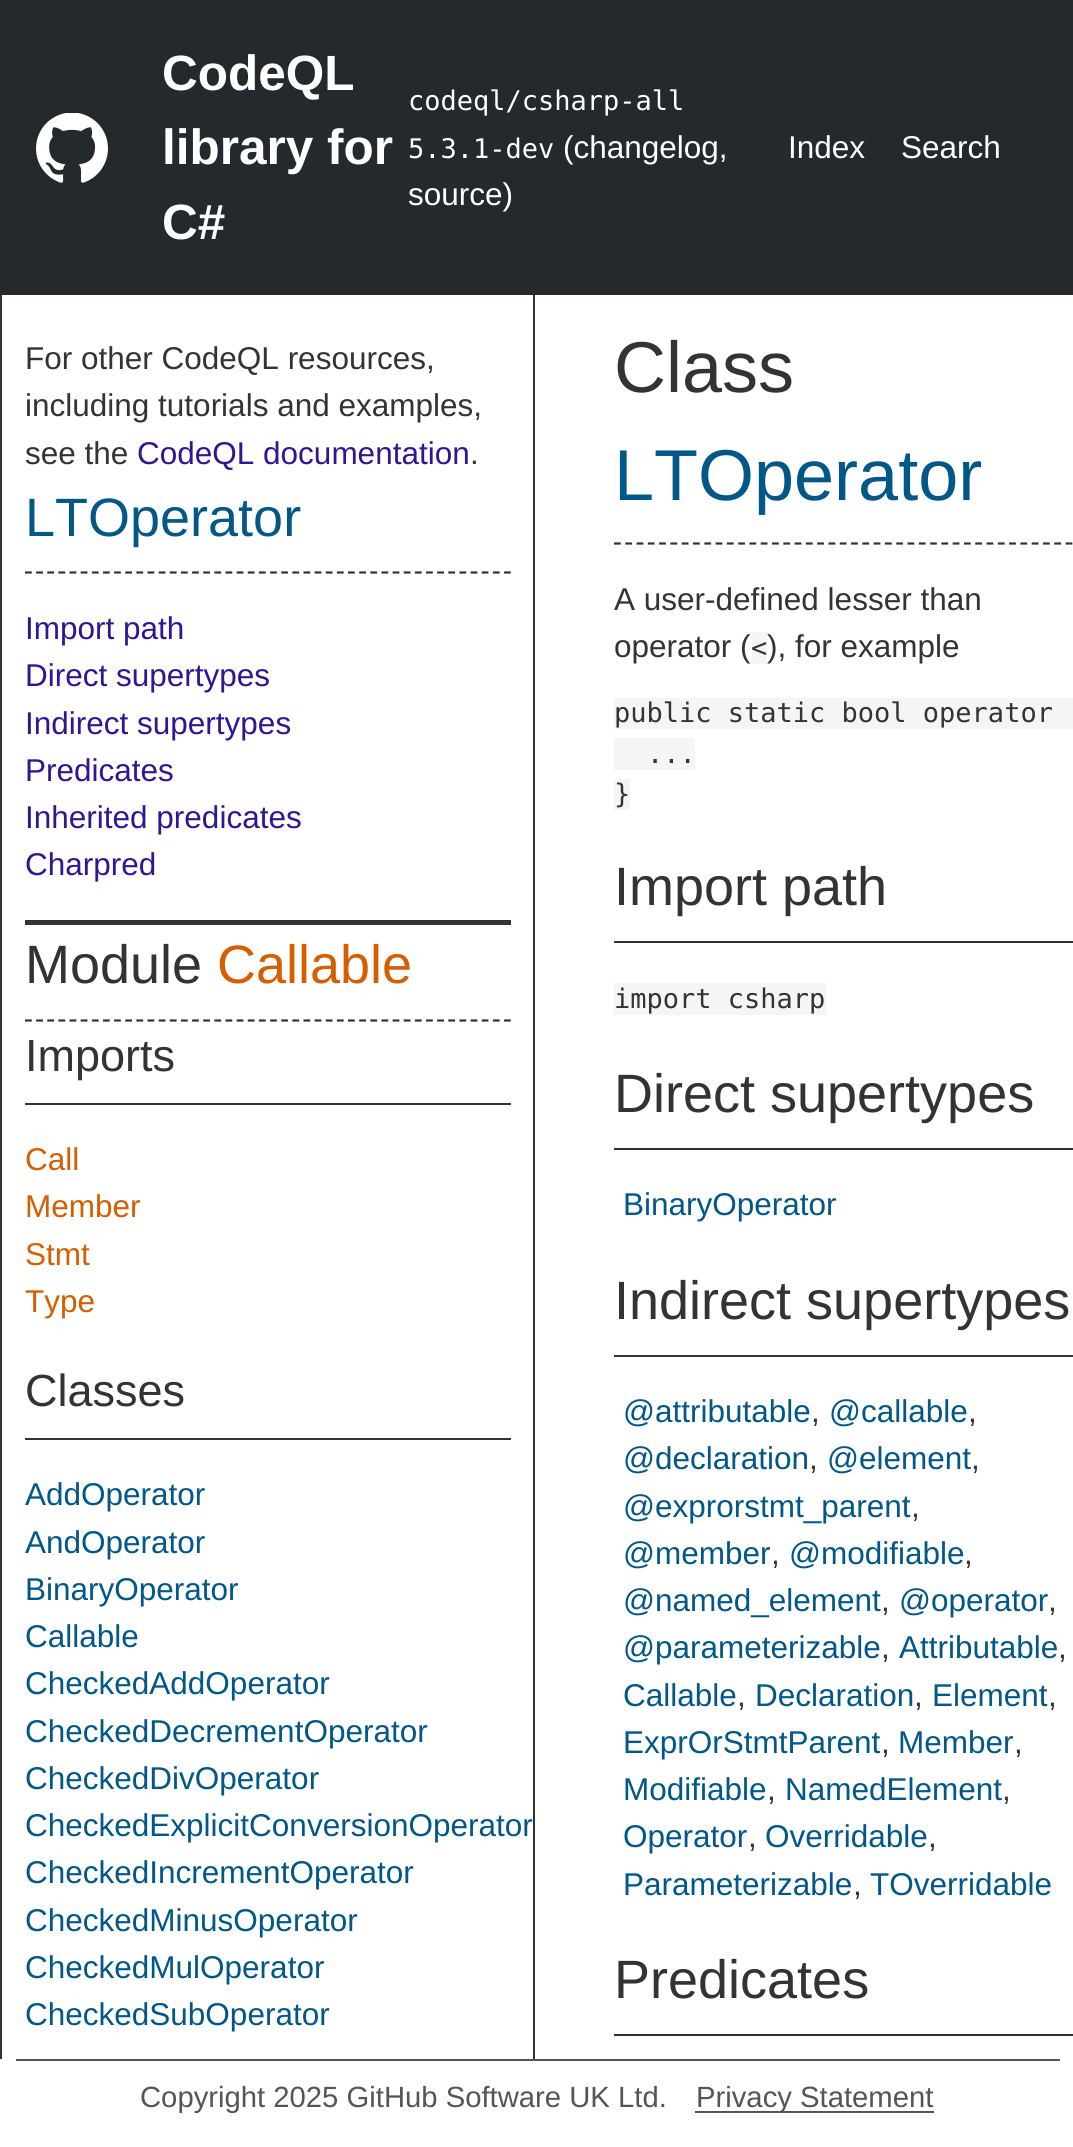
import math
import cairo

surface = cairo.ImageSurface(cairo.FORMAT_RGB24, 1073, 2147)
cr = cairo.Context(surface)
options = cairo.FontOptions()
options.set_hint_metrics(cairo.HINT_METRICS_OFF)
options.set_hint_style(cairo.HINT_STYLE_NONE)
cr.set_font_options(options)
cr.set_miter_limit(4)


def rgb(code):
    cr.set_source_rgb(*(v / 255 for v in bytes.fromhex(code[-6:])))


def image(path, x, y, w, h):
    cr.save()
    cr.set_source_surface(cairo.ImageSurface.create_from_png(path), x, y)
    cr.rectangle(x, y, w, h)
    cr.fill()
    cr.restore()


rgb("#ffffff")
cr.paint()
rgb("#24292e")
cr.rectangle(0, 0, 1073, 295)
cr.fill()
image("img/1.png", 36, 113, 72, 70)
for x, y, w, h, color in [
    (533, 295, 2, 1764, "#333333"),
    (0, 295, 2, 1764, "#333333"),
    (25, 920, 486, 5, "#333333"),
]:
    rgb(color)
    cr.rectangle(x, y, w, h)
    cr.fill()
cr.new_path()
cr.move_to(25, 572.5)
cr.line_to(511, 572.5)
cr.set_line_width(2.2)
cr.set_dash([6.75, 4.39])
cr.stroke()
cr.new_path()
cr.move_to(25, 1020.5)
cr.line_to(511, 1020.5)
cr.stroke()
cr.rectangle(25, 1103, 486, 2)
cr.fill()
cr.rectangle(25, 1438, 486, 2)
cr.fill()
cr.new_path()
cr.move_to(614, 543.5)
cr.line_to(1073, 543.5)
cr.set_dash([6.75, 4.54])
cr.stroke()
for x, y, w, h, color in [
    (752, 632, 15, 32, "#f5f5f5"),
    (614, 698, 459, 31, "#f5f5f5"),
    (614, 738, 81, 32, "#f5f5f5"),
    (614, 779, 16, 31, "#f5f5f5"),
    (614, 941, 459, 2, "#333333"),
    (614, 983, 212, 32, "#f5f5f5"),
    (614, 1148, 459, 2, "#333333"),
    (614, 1355, 459, 2, "#333333"),
    (614, 2034, 459, 2, "#333333"),
    (16, 2059, 1044, 2, "#555555"),
    (695, 2111, 239, 2, "#555555"),
]:
    rgb(color)
    cr.rectangle(x, y, w, h)
    cr.fill()
cr.select_font_face("Liberation Sans", cairo.FONT_SLANT_NORMAL, cairo.FONT_WEIGHT_BOLD)
cr.set_font_size(49.5)
rgb("#ffffff")
for x, y, s in [
    (162, 90, "CodeQL"),
    (162, 164, "library for"),
    (162, 239, "C#"),
]:
    cr.move_to(x, y)
    cr.show_text(s)
cr.select_font_face("DejaVu Sans Mono")
cr.set_font_size(27)
cr.move_to(408, 110)
cr.show_text("codeql/csharp-all")
cr.move_to(408, 158)
cr.show_text("5.3.1-dev")
cr.select_font_face("Liberation Sans")
cr.set_font_size(31.5)
for x, y, s in [
    (563, 158, "(changelog,"),
    (408, 205, "source)"),
    (788, 158, "Index"),
    (901, 158, "Search"),
]:
    cr.move_to(x, y)
    cr.show_text(s)
rgb("#333333")
for x, y, s in [
    (25, 369, "For other CodeQL resources,"),
    (25, 416, "including tutorials and examples,"),
    (25, 464, "see the"),
]:
    cr.move_to(x, y)
    cr.show_text(s)
rgb("#2f1695")
cr.move_to(137, 464)
cr.show_text("CodeQL documentation")
rgb("#333333")
cr.move_to(470, 464)
cr.show_text(".")
cr.set_font_size(54)
rgb("#005788")
cr.move_to(25, 536)
cr.show_text("LTOperator")
cr.set_font_size(31.5)
rgb("#2f1695")
for x, y, s in [
    (25, 639, "Import path"),
    (25, 686, "Direct supertypes"),
    (25, 734, "Indirect supertypes"),
    (25, 781, "Predicates"),
    (25, 828, "Inherited predicates"),
    (25, 875, "Charpred"),
]:
    cr.move_to(x, y)
    cr.show_text(s)
cr.set_font_size(54)
rgb("#333333")
cr.move_to(25, 983)
cr.show_text("Module")
rgb("#d55e00")
cr.move_to(217, 983)
cr.show_text("Callable")
cr.set_font_size(45)
rgb("#333333")
cr.move_to(25, 1071)
cr.show_text("Imports")
cr.set_font_size(31.5)
rgb("#d55e00")
for x, y, s in [
    (25, 1170, "Call"),
    (25, 1217, "Member"),
    (25, 1265, "Stmt"),
    (25, 1312, "Type"),
]:
    cr.move_to(x, y)
    cr.show_text(s)
cr.set_font_size(45)
rgb("#333333")
cr.move_to(25, 1406)
cr.show_text("Classes")
cr.set_font_size(31.5)
rgb("#005788")
for x, y, s in [
    (25, 1505, "AddOperator"),
    (25, 1553, "AndOperator"),
    (25, 1600, "BinaryOperator"),
    (25, 1647, "Callable"),
    (25, 1694, "CheckedAddOperator"),
    (25, 1742, "CheckedDecrementOperator"),
    (25, 1789, "CheckedDivOperator"),
    (25, 1836, "CheckedExplicitConversionOperator"),
    (25, 1883, "CheckedIncrementOperator"),
    (25, 1931, "CheckedMinusOperator"),
    (25, 1978, "CheckedMulOperator"),
    (25, 2025, "CheckedSubOperator"),
]:
    cr.move_to(x, y)
    cr.show_text(s)
cr.set_font_size(72)
rgb("#333333")
cr.move_to(614, 392)
cr.show_text("Class")
rgb("#005788")
cr.move_to(614, 500)
cr.show_text("LTOperator")
cr.set_font_size(31.5)
rgb("#333333")
cr.move_to(614, 610)
cr.show_text("A user-defined lesser than")
cr.move_to(614, 657)
cr.show_text("operator (")
cr.select_font_face("DejaVu Sans Mono")
cr.set_font_size(27)
cr.move_to(751, 657)
cr.show_text("<")
cr.select_font_face("Liberation Sans")
cr.set_font_size(31.5)
cr.move_to(767, 657)
cr.show_text("), for example")
cr.select_font_face("DejaVu Sans Mono")
cr.set_font_size(27)
for x, y, s in [
    (614, 722, "public static bool operator"),
    (647, 763, "..."),
    (614, 803, "}"),
]:
    cr.move_to(x, y)
    cr.show_text(s)
cr.select_font_face("Liberation Sans")
cr.set_font_size(54)
cr.move_to(614, 905)
cr.show_text("Import path")
cr.select_font_face("DejaVu Sans Mono")
cr.set_font_size(27)
cr.move_to(614, 1008)
cr.show_text("import csharp")
cr.select_font_face("Liberation Sans")
cr.set_font_size(54)
cr.move_to(614, 1112)
cr.show_text("Direct supertypes")
cr.set_font_size(31.5)
rgb("#005788")
cr.move_to(623, 1215)
cr.show_text("BinaryOperator")
cr.set_font_size(54)
rgb("#333333")
cr.move_to(614, 1319)
cr.show_text("Indirect supertypes")
cr.set_font_size(31.5)
rgb("#005788")
cr.move_to(623, 1422)
cr.show_text("@attributable")
rgb("#333333")
cr.move_to(811, 1422)
cr.show_text(",")
rgb("#005788")
cr.move_to(829, 1422)
cr.show_text("@callable")
rgb("#333333")
cr.move_to(968, 1422)
cr.show_text(",")
rgb("#005788")
cr.move_to(623, 1469)
cr.show_text("@declaration")
rgb("#333333")
cr.move_to(809, 1469)
cr.show_text(",")
rgb("#005788")
cr.move_to(827, 1469)
cr.show_text("@element")
rgb("#333333")
cr.move_to(971, 1469)
cr.show_text(",")
rgb("#005788")
cr.move_to(623, 1517)
cr.show_text("@exprorstmt_parent")
rgb("#333333")
cr.move_to(911, 1517)
cr.show_text(",")
rgb("#005788")
cr.move_to(623, 1564)
cr.show_text("@member")
rgb("#333333")
cr.move_to(771, 1564)
cr.show_text(",")
rgb("#005788")
cr.move_to(789, 1564)
cr.show_text("@modifiable")
rgb("#333333")
cr.move_to(964, 1564)
cr.show_text(",")
rgb("#005788")
cr.move_to(623, 1611)
cr.show_text("@named_element")
rgb("#333333")
cr.move_to(881, 1611)
cr.show_text(",")
rgb("#005788")
cr.move_to(899, 1611)
cr.show_text("@operator")
rgb("#333333")
cr.move_to(1048, 1611)
cr.show_text(",")
rgb("#005788")
cr.move_to(623, 1658)
cr.show_text("@parameterizable")
rgb("#333333")
cr.move_to(881, 1658)
cr.show_text(",")
rgb("#005788")
cr.move_to(899, 1658)
cr.show_text("Attributable")
rgb("#333333")
cr.move_to(1058, 1658)
cr.show_text(",")
rgb("#005788")
cr.move_to(623, 1706)
cr.show_text("Callable")
rgb("#333333")
cr.move_to(737, 1706)
cr.show_text(",")
rgb("#005788")
cr.move_to(755, 1706)
cr.show_text("Declaration")
rgb("#333333")
cr.move_to(914, 1706)
cr.show_text(",")
rgb("#005788")
cr.move_to(932, 1706)
cr.show_text("Element")
rgb("#333333")
cr.move_to(1048, 1706)
cr.show_text(",")
rgb("#005788")
cr.move_to(623, 1753)
cr.show_text("ExprOrStmtParent")
rgb("#333333")
cr.move_to(881, 1753)
cr.show_text(",")
rgb("#005788")
cr.move_to(898, 1753)
cr.show_text("Member")
rgb("#333333")
cr.move_to(1014, 1753)
cr.show_text(",")
rgb("#005788")
cr.move_to(623, 1800)
cr.show_text("Modifiable")
rgb("#333333")
cr.move_to(767, 1800)
cr.show_text(",")
rgb("#005788")
cr.move_to(785, 1800)
cr.show_text("NamedElement")
rgb("#333333")
cr.move_to(1002, 1800)
cr.show_text(",")
rgb("#005788")
cr.move_to(623, 1847)
cr.show_text("Operator")
rgb("#333333")
cr.move_to(748, 1847)
cr.show_text(",")
rgb("#005788")
cr.move_to(765, 1847)
cr.show_text("Overridable")
rgb("#333333")
cr.move_to(928, 1847)
cr.show_text(",")
rgb("#005788")
cr.move_to(623, 1895)
cr.show_text("Parameterizable")
rgb("#333333")
cr.move_to(853, 1895)
cr.show_text(",")
rgb("#005788")
cr.move_to(870, 1895)
cr.show_text("TOverridable")
cr.set_font_size(54)
rgb("#333333")
cr.move_to(614, 1998)
cr.show_text("Predicates")
cr.set_font_size(29.25)
rgb("#555555")
cr.move_to(140, 2107)
cr.show_text("Copyright 2025 GitHub Software UK Ltd.")
cr.move_to(696, 2107)
cr.show_text("Privacy Statement")
surface.write_to_png("page.png")
